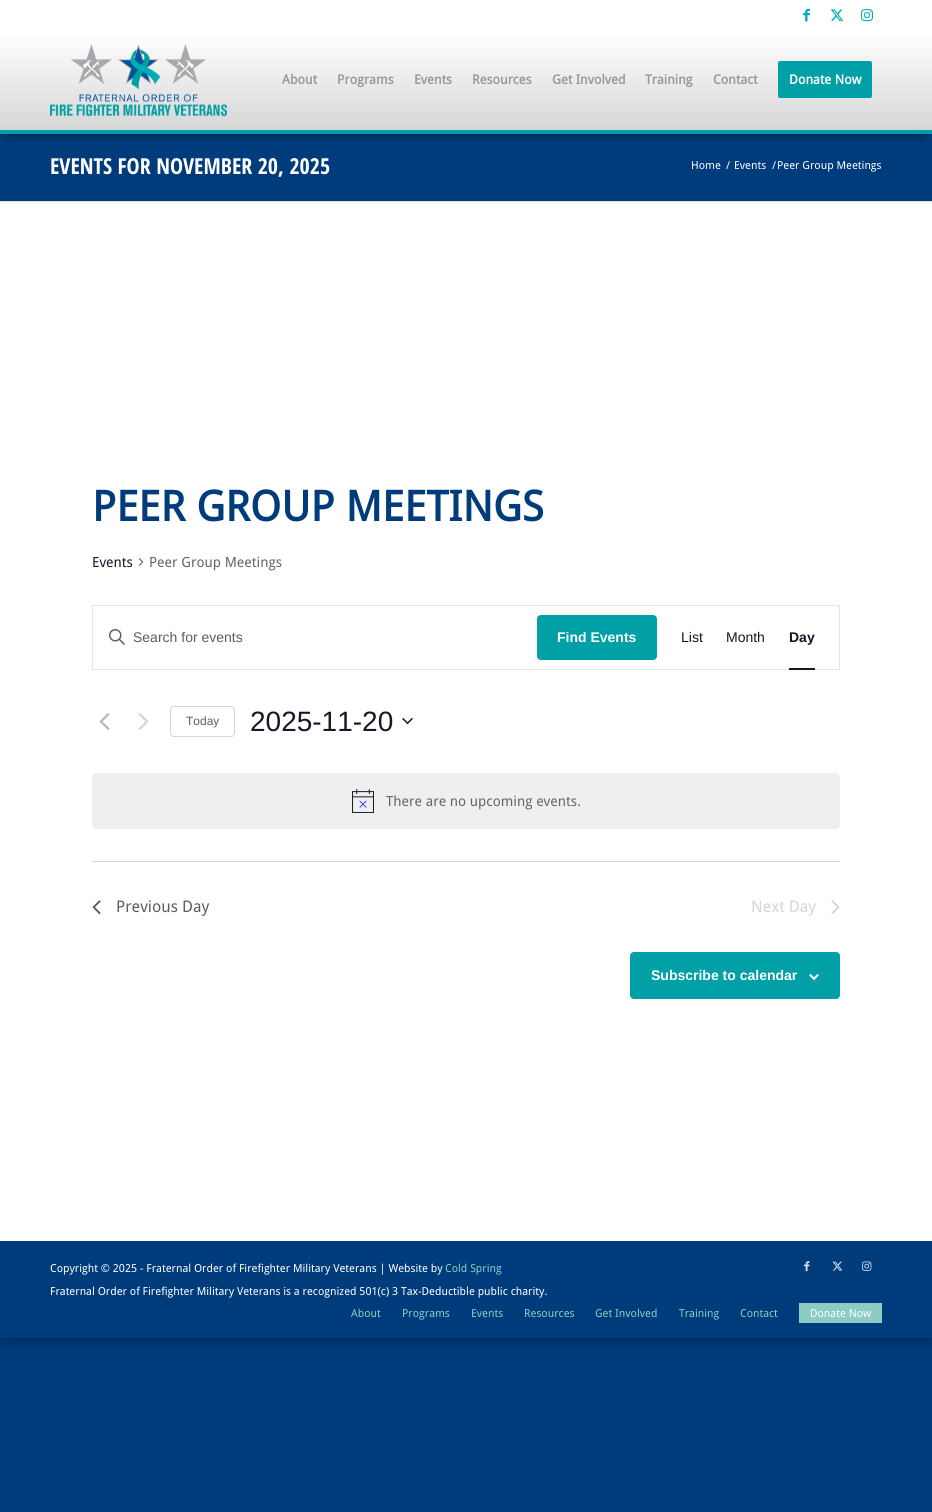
import math
import cairo

surface = cairo.ImageSurface(cairo.FORMAT_RGB24, 932, 1512)
cr = cairo.Context(surface)
options = cairo.FontOptions()
options.set_hint_metrics(cairo.HINT_METRICS_OFF)
options.set_hint_style(cairo.HINT_STYLE_NONE)
cr.set_font_options(options)
cr.set_miter_limit(4)


def rgb(code):
    cr.set_source_rgb(*(v / 255 for v in bytes.fromhex(code[-6:])))


def rrect(x, y, w, h, r):
    cr.new_sub_path()
    for i, (u, v) in enumerate([(x + w - r, y + h - r), (x + r, y + h - r), (x + r, y + r), (x + w - r, y + r)]):
        cr.arc(u, v, r, i * math.pi / 2, (i + 1) * math.pi / 2)
    cr.close_path()


def soft_shadow(x, y, w, h, r, blur, alpha):
    cr.push_group_with_content(cairo.CONTENT_ALPHA)
    cr.set_operator(cairo.OPERATOR_SOURCE)
    for i in range(15, -16, -2):
        e = blur * i / 6
        if min(w, h) + 2 * e > 0:
            cr.set_source_rgba(0, 0, 0, alpha * math.erfc((i - 1) / 8.5) / 2)
            rrect(x - e, y - e, w + 2 * e, h + 2 * e, max(0, min(r + e + blur * .6, min(w, h) / 2 + e)))
            cr.fill()
    cr.mask(cr.pop_group())


def image(path, x, y, w, h):
    cr.save()
    cr.set_source_surface(cairo.ImageSurface.create_from_png(path), x, y)
    cr.rectangle(x, y, w, h)
    cr.fill()
    cr.restore()


rgb("#003c7c")
cr.paint()
rgb("#000000")
soft_shadow(1, 1, 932, 1338, 0, 7.5, 0.4)
rgb("#ffffff")
cr.rectangle(0, 202, 932, 1039)
cr.fill()
rgb("#003c7c")
cr.rectangle(0, 134, 932, 67)
cr.fill()
rgb("#000000")
soft_shadow(8, 18, 916, 118, 0, 5, 0.4)
gradient = cairo.LinearGradient(466, 0, 466, 130)
gradient.add_color_stop_rgba(0.25, 1, 1, 1, 1)
gradient.add_color_stop_rgba(1, 0.839, 0.839, 0.839, 1)
cr.set_source(gradient)
cr.rectangle(0, 0, 932, 130)
cr.fill()
rgb("#00a0a6")
cr.rectangle(0, 130, 932, 4)
cr.fill()
image("img/1.png", 803, 8, 7, 14)
image("img/2.png", 830, 9, 14, 12)
image("img/3.png", 861, 9, 12, 13)
image("img/4.png", 50, 44, 177, 73)
rrect(779, 62, 92, 35, 1)
cr.fill_preserve()
cr.stroke()
rgb("#e1e1e1")
cr.rectangle(0, 201, 932, 1)
cr.fill()
image("img/5.png", 138, 558, 6, 8)
cr.rectangle(92.5, 605.5, 747, 64)
rgb("#e4e4e4")
cr.set_line_width(1)
cr.stroke()
image("img/6.png", 109, 629, 16, 16)
rgb("#00a0a6")
rrect(537, 615, 120, 45, 4)
cr.fill()
rgb("#141827")
cr.rectangle(789, 668, 26, 2)
cr.fill()
image("img/7.png", 99, 713, 11, 17)
image("img/8.png", 138, 713, 11, 17)
rrect(170.5, 706.5, 64, 30, 3.5)
rgb("#d5d5d5")
cr.stroke()
image("img/9.png", 402, 717, 11, 8)
rgb("#efeff0")
rrect(92, 773, 748, 56, 4)
cr.fill()
image("img/10.png", 352, 789, 22, 24)
rgb("#d5d5d5")
cr.rectangle(92, 861, 748, 1)
cr.fill()
image("img/11.png", 92, 900, 9, 15)
image("img/12.png", 831, 900, 9, 14)
rgb("#00a0a6")
rrect(630.5, 952.5, 209, 46, 3.5)
cr.fill_preserve()
cr.stroke()
image("img/13.png", 809, 974, 10, 6)
rgb("#003c7c")
cr.rectangle(0, 1241, 932, 97)
cr.fill()
image("img/14.png", 804, 1261, 6, 11)
image("img/15.png", 832, 1261, 11, 10)
image("img/16.png", 862, 1261, 10, 10)
rgb("#8cccc3")
cr.rectangle(799, 1303, 83, 20)
cr.fill()
cr.select_font_face("Droid Sans", cairo.FONT_SLANT_NORMAL, cairo.FONT_WEIGHT_BOLD)
cr.set_font_size(13)
rgb("#999999")
for x, y, s in [
    (282, 84, "About"),
    (337, 84, "Programs"),
    (414, 84, "Events"),
    (472, 84, "Resources"),
    (552, 84, "Get Involved"),
    (645, 84, "Training"),
    (713, 84, "Contact"),
]:
    cr.move_to(x, y)
    cr.show_text(s)
rgb("#ffffff")
cr.move_to(789, 84)
cr.show_text("Donate Now")
cr.select_font_face("Open Sans Condensed", cairo.FONT_SLANT_NORMAL, cairo.FONT_WEIGHT_BOLD)
cr.set_font_size(22)
cr.move_to(50, 174)
cr.show_text("EVENTS FOR NOVEMBER 20, 2025")
cr.select_font_face("Droid Sans")
cr.set_font_size(11)
for x, y, s in [
    (691, 169, "Home"),
    (726, 169, "/"),
    (734, 169, "Events"),
    (772, 169, "/"),
    (777, 169, "Peer Group Meetings"),
]:
    cr.move_to(x, y)
    cr.show_text(s)
cr.select_font_face("Droid Sans", cairo.FONT_SLANT_NORMAL, cairo.FONT_WEIGHT_BOLD)
cr.set_font_size(42)
rgb("#003c7c")
cr.move_to(92, 521)
cr.show_text("PEER GROUP MEETINGS")
cr.select_font_face("Droid Sans")
cr.set_font_size(14)
rgb("#141827")
cr.move_to(92, 567)
cr.show_text("Events")
rgb("#666666")
cr.move_to(149, 567)
cr.show_text("Peer Group Meetings")
cr.select_font_face("Liberation Sans")
rgb("#5d5d5d")
cr.move_to(133, 642)
cr.show_text("Search for events")
cr.select_font_face("Liberation Sans", cairo.FONT_SLANT_NORMAL, cairo.FONT_WEIGHT_BOLD)
rgb("#ffffff")
cr.move_to(557, 642)
cr.show_text("Find Events")
cr.select_font_face("Liberation Sans")
rgb("#141827")
cr.move_to(681, 642)
cr.show_text("List")
cr.move_to(726, 642)
cr.show_text("Month")
cr.select_font_face("Liberation Sans", cairo.FONT_SLANT_NORMAL, cairo.FONT_WEIGHT_BOLD)
cr.move_to(789, 642)
cr.show_text("Day")
cr.select_font_face("Liberation Sans")
cr.set_font_size(12)
rgb("#5d5d5d")
cr.move_to(186, 725)
cr.show_text("Today")
cr.set_font_size(28)
rgb("#141827")
cr.move_to(250, 731)
cr.show_text("2025-11-20")
cr.select_font_face("Droid Sans")
cr.set_font_size(14)
rgb("#666666")
cr.move_to(386, 806)
cr.show_text("There are no upcoming events.")
cr.set_font_size(16)
rgb("#5d5d5d")
cr.move_to(116, 912)
cr.show_text("Previous Day")
rgb("#d5d5d5")
cr.move_to(751, 912)
cr.show_text("Next Day")
cr.select_font_face("Liberation Sans", cairo.FONT_SLANT_NORMAL, cairo.FONT_WEIGHT_BOLD)
cr.set_font_size(14)
rgb("#ffffff")
cr.move_to(651, 980)
cr.show_text("Subscribe to calendar")
cr.select_font_face("Droid Sans")
cr.set_font_size(11)
cr.move_to(50, 1272)
cr.show_text("Copyright © 2025 - Fraternal Order of Firefighter Military Veterans | Website by")
rgb("#8cccc3")
cr.move_to(445, 1272)
cr.show_text("Cold Spring")
rgb("#ffffff")
cr.move_to(50, 1295)
cr.show_text("Fraternal Order of Firefighter Military Veterans is a recognized 501(c) 3 Tax-Deductible public charity.")
rgb("#8cccc3")
for x, y, s in [
    (351, 1317, "About"),
    (402, 1317, "Programs"),
    (471, 1317, "Events"),
    (524, 1317, "Resources"),
    (595, 1317, "Get Involved"),
    (679, 1317, "Training"),
    (740, 1317, "Contact"),
]:
    cr.move_to(x, y)
    cr.show_text(s)
rgb("#ffffff")
cr.move_to(810, 1317)
cr.show_text("Donate Now")
surface.write_to_png("page.png")
